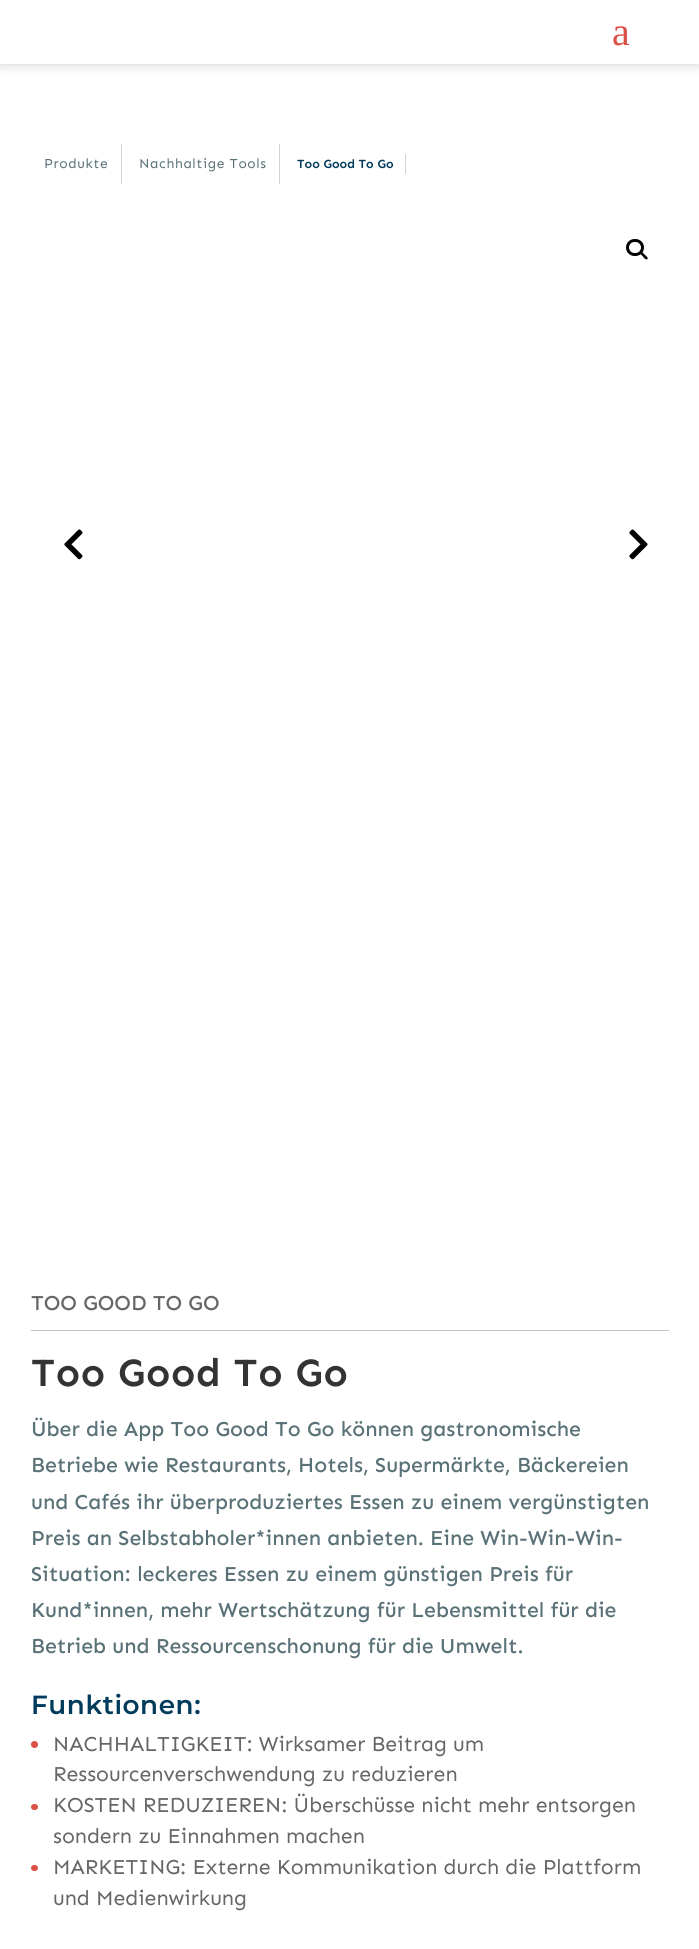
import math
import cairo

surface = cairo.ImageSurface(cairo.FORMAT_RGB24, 699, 1949)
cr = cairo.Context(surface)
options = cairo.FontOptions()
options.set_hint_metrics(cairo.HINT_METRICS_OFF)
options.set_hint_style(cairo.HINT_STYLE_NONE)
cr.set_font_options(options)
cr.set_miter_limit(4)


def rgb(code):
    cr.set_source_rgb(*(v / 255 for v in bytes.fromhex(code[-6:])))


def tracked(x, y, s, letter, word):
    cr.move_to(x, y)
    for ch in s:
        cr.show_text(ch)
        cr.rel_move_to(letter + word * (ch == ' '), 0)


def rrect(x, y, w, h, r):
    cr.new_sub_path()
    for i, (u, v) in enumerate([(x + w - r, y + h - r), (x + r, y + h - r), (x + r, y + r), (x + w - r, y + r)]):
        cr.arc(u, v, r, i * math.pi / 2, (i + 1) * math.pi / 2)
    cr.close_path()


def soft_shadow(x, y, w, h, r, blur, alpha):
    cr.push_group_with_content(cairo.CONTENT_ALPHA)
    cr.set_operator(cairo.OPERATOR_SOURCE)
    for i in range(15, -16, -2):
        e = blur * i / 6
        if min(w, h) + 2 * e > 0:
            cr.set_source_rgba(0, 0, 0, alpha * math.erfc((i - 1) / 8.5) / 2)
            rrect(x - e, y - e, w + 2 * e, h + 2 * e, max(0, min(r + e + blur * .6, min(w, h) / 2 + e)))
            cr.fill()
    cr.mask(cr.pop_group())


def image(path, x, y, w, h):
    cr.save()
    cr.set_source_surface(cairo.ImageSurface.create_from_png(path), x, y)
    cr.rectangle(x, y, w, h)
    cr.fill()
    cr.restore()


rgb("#ffffff")
cr.paint()
rgb("#000000")
soft_shadow(0, 0, 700, 64, 0, 6, 0.2)
for x, y, w, h, color in [
    (0, 0, 699, 64, "#ffffff"),
    (121, 144, 1, 40, "#d3d3d3"),
    (279, 144, 1, 40, "#d3d3d3"),
    (405, 154, 1, 20, "#d3d3d3"),
]:
    rgb(color)
    cr.rectangle(x, y, w, h)
    cr.fill()
rrect(627.5, 240.5, 15, 14, 7)
rgb("#000000")
cr.set_line_width(3)
cr.stroke()
cr.new_path()
cr.move_to(640, 252)
cr.curve_to(641.5, 250.5, 644, 254, 644.5, 254.5)
cr.curve_to(645.5, 255.5, 648.5, 257.5, 647.5, 259)
cr.curve_to(646, 260.5, 643.5, 257.5, 643, 256.5)
cr.curve_to(642, 255.5, 639, 253.5, 640, 252)
cr.close_path()
cr.fill()
image("img/1.png", 64, 529, 19, 31)
image("img/2.png", 629, 529, 19, 31)
rgb("#c4c4c4")
cr.rectangle(31, 1330, 638, 1)
cr.fill()
rgb("#da5046")
cr.arc(34.5, 1744.5, 3.5, 0, 2 * math.pi)
cr.fill()
rrect(31, 1804, 7, 6, 3)
cr.fill()
rrect(31, 1865, 7, 6, 3)
cr.fill()
cr.select_font_face("Liberation Serif")
cr.set_font_size(40)
cr.move_to(612, 45)
cr.show_text("a")
cr.select_font_face("Sen")
cr.set_font_size(13.75)
rgb("#597177")
tracked(44, 168, "Produkte", 0.6, 0)
tracked(139, 168, "Nachhaltige Tools", 0.6, 0)
cr.select_font_face("Sen SemiBold")
cr.set_font_size(12.5)
rgb("#003b5c")
cr.move_to(297, 168)
cr.show_text("Too Good To Go")
cr.select_font_face("Sen Medium")
cr.set_font_size(21.25)
rgb("#666666")
cr.move_to(31, 1310)
cr.show_text("TOO GOOD TO GO")
cr.select_font_face("Sen SemiBold")
cr.set_font_size(40)
rgb("#333333")
tracked(31, 1386, "Too Good To Go", 0.6, 0)
cr.select_font_face("Sen Medium")
cr.set_font_size(21.25)
rgb("#597177")
for x, y, s in [
    (31, 1436, "Über die App Too Good To Go können gastronomische"),
    (31, 1472, "Betriebe wie Restaurants, Hotels, Supermärkte, Bäckereien"),
    (31, 1509, "und Cafés ihr überproduziertes Essen zu einem vergünstigten"),
    (31, 1545, "Preis an Selbstabholer*innen anbieten. Eine Win-Win-Win-"),
    (31, 1581, "Situation: leckeres Essen zu einem günstigen Preis für"),
    (31, 1617, "Kund*innen, mehr Wertschätzung für Lebensmittel für die"),
    (31, 1653, "Betrieb und Ressourcenschonung für die Umwelt."),
]:
    cr.move_to(x, y)
    cr.show_text(s)
cr.select_font_face("Montserrat SemiBold")
cr.set_font_size(26.25)
rgb("#003b5c")
tracked(31, 1714, "Funktionen:", 0.6, 0)
cr.select_font_face("Sen")
cr.set_font_size(21.25)
rgb("#666666")
for x, y, s in [
    (53, 1751, "NACHHALTIGKEIT: Wirksamer Beitrag um"),
    (53, 1781, "Ressourcenverschwendung zu reduzieren"),
    (53, 1812, "KOSTEN REDUZIEREN: Überschüsse nicht mehr entsorgen"),
    (53, 1843, "sondern zu Einnahmen machen"),
    (53, 1874, "MARKETING: Externe Kommunikation durch die Plattform"),
    (53, 1905, "und Medienwirkung"),
]:
    cr.move_to(x, y)
    cr.show_text(s)
surface.write_to_png("page.png")
